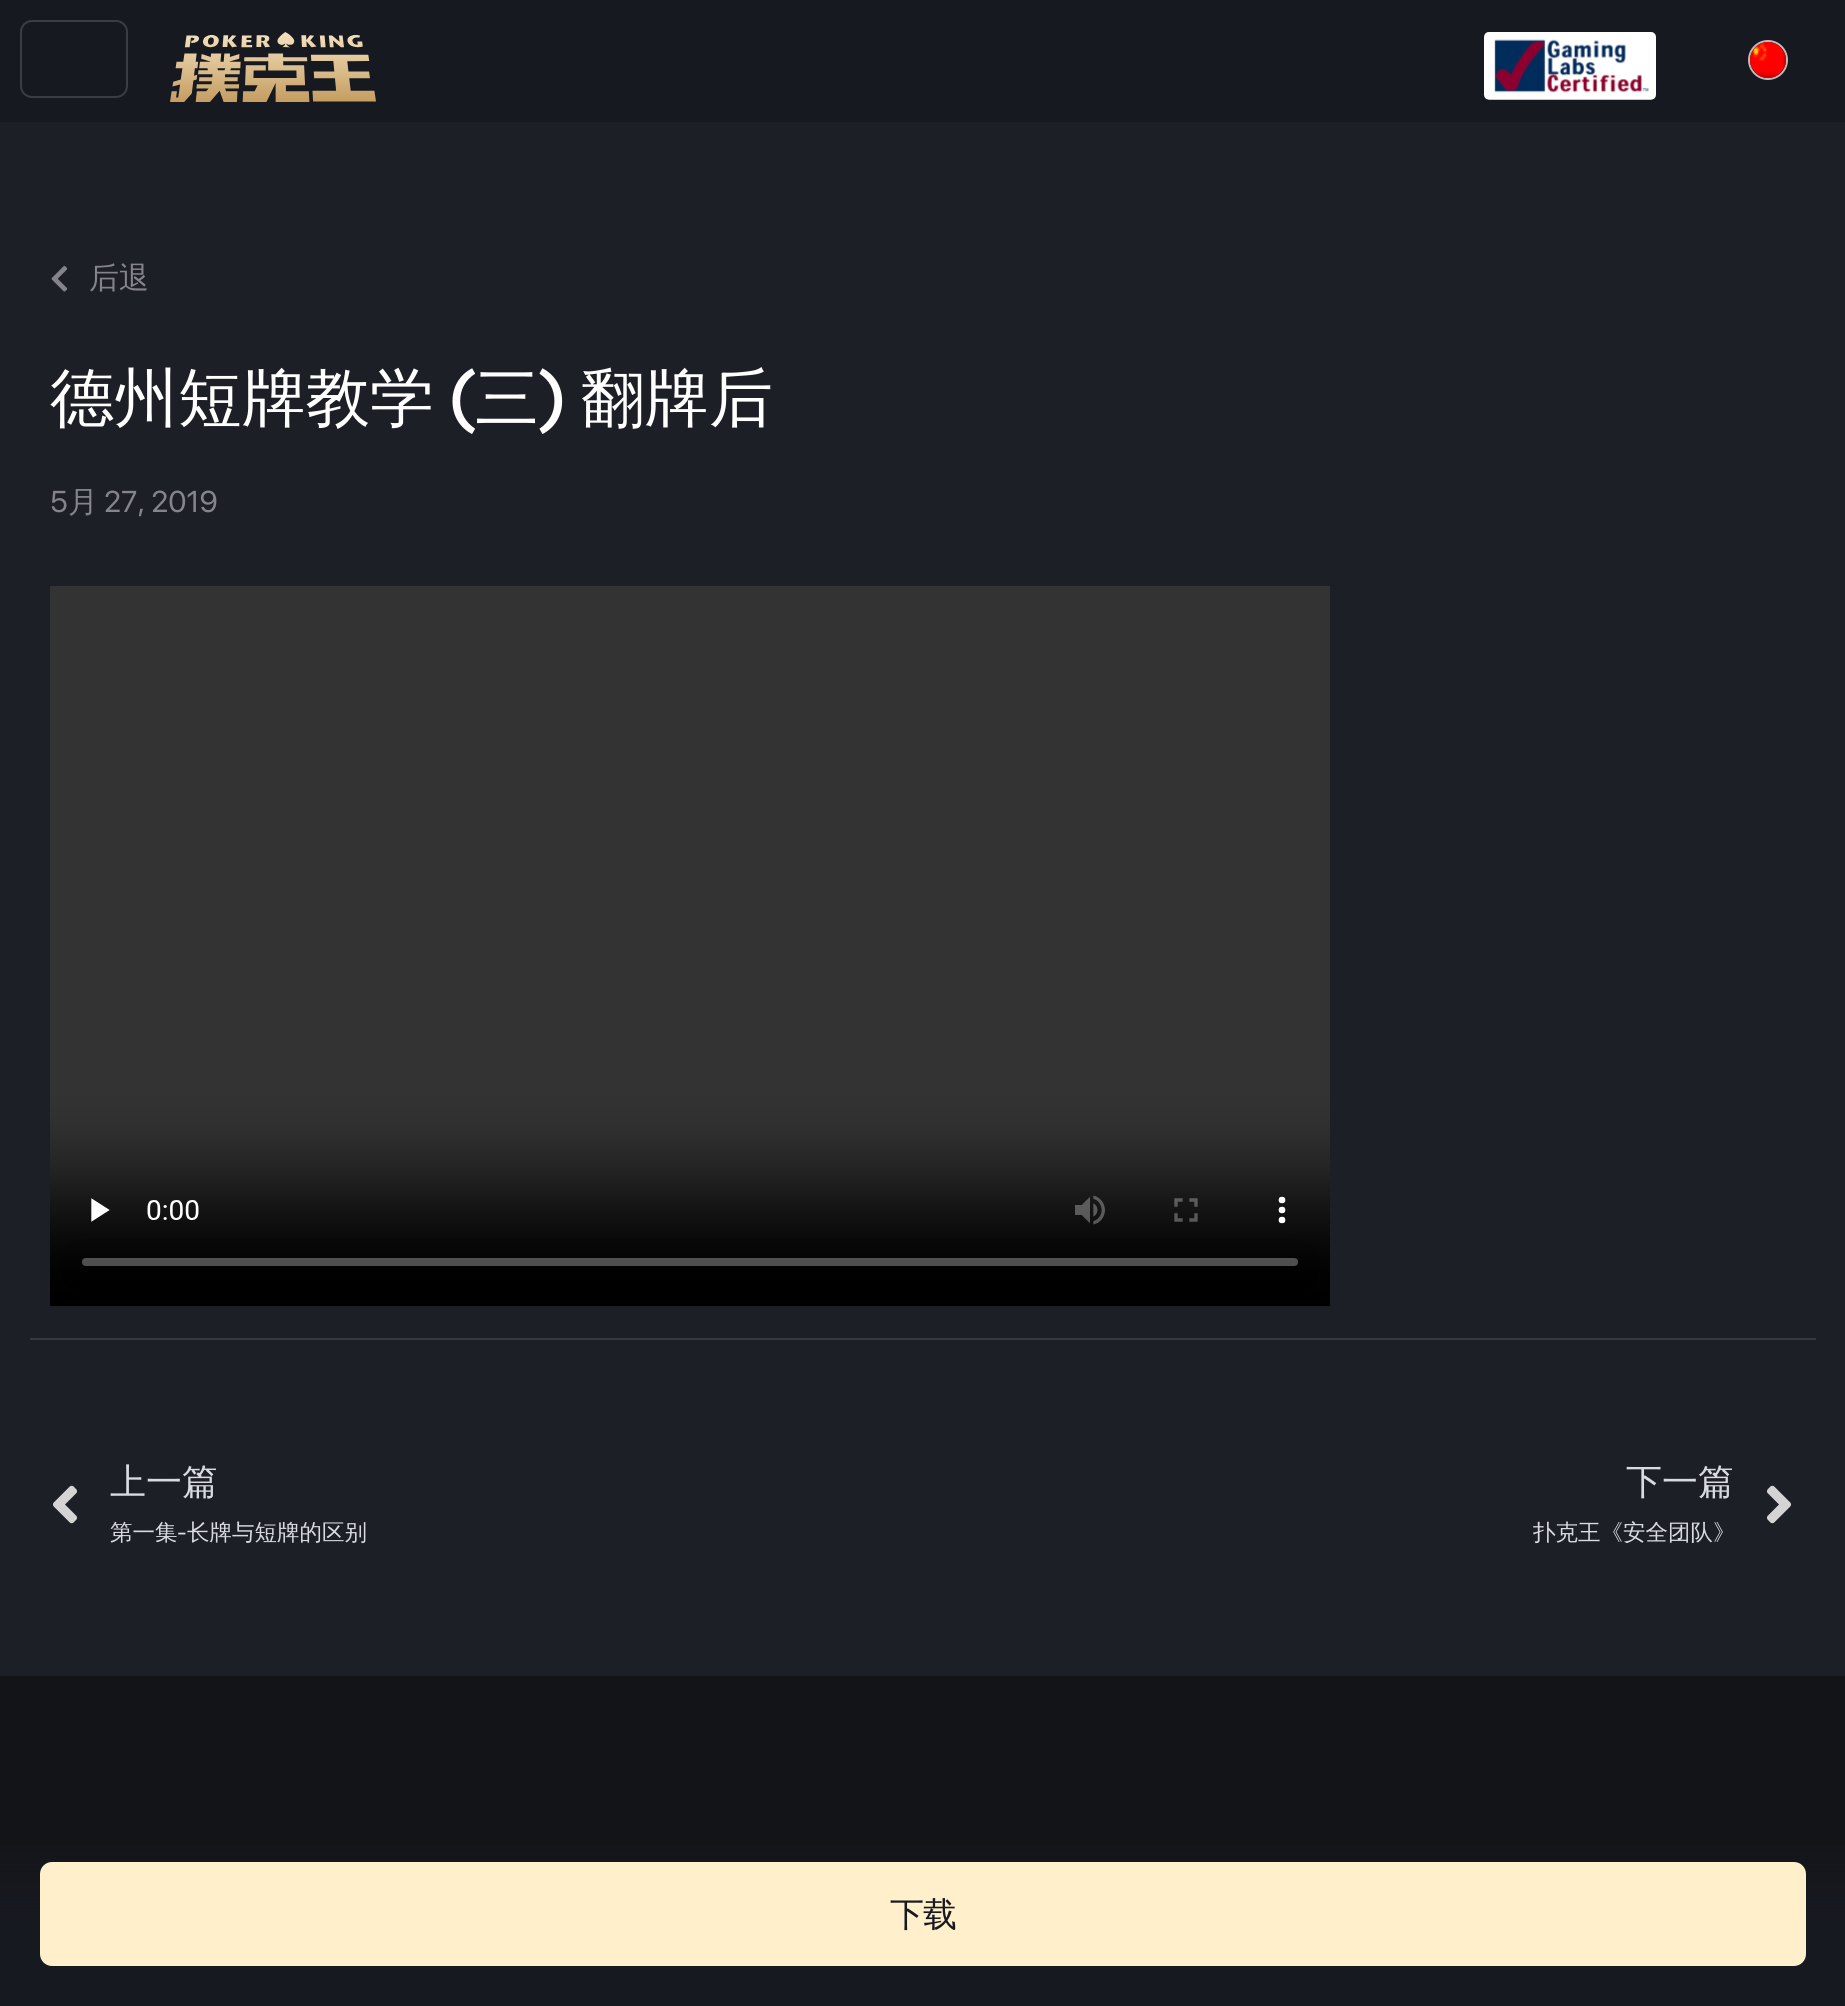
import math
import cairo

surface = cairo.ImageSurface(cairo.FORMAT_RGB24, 1845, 2006)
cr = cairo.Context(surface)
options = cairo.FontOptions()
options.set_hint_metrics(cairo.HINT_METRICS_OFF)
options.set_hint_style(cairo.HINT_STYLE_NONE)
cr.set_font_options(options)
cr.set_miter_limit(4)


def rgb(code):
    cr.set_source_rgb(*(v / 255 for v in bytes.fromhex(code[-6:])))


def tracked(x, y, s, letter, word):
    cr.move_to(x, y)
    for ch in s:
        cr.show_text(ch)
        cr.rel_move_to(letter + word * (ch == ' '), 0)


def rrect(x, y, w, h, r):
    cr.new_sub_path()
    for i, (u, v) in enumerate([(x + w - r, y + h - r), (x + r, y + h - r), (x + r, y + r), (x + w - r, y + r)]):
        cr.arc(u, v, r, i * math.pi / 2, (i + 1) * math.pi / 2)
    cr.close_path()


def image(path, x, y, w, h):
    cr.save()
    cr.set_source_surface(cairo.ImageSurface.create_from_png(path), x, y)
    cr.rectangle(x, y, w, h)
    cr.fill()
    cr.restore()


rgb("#1d1f26")
cr.paint()
rgb("#171920")
cr.rectangle(0, 0, 1845, 122)
cr.fill()
rrect(21, 21, 106, 76, 11)
rgb("#3b3d44")
cr.stroke()
image("img/1.png", 170, 32, 206, 70)
image("img/2.png", 1484, 32, 172, 68)
cr.arc(1768, 60, 19, 0, 2 * math.pi)
rgb("#bcbcbe")
cr.stroke()
image("img/3.png", 1750, 42, 36, 36)
image("img/4.png", 51, 266, 17, 26)
image("img/5.png", 50, 586, 1280, 720)
rgb("#37393e")
cr.rectangle(30, 1338, 1786, 2)
cr.fill()
image("img/6.png", 52, 1485, 26, 39)
image("img/7.png", 1766, 1485, 26, 39)
rgb("#121418")
cr.rectangle(0, 1676, 1845, 237)
cr.fill()
gradient = cairo.LinearGradient(923, 1822, 923, 2006)
gradient.add_color_stop_rgba(0, 0.09, 0.098, 0.125, 0)
gradient.add_color_stop_rgba(0.5, 0.09, 0.098, 0.125, 1)
cr.set_source(gradient)
cr.rectangle(0, 1846, 1845, 160)
cr.fill()
rgb("#ffefcb")
rrect(40, 1862, 1766, 104, 12)
cr.fill()
cr.select_font_face("WenQuanYi Zen Hei Medium")
cr.set_font_size(30)
rgb("#84848a")
cr.move_to(89, 288)
cr.show_text("后退")
cr.set_font_size(64)
rgb("#ffffff")
cr.move_to(50, 420)
cr.show_text("德州短牌教学")
cr.select_font_face("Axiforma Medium")
cr.move_to(450, 420)
cr.show_text("(")
cr.select_font_face("WenQuanYi Zen Hei Medium")
cr.move_to(475, 420)
cr.show_text("三")
cr.select_font_face("Axiforma Medium")
cr.move_to(539, 420)
cr.show_text(")")
cr.select_font_face("WenQuanYi Zen Hei Medium")
cr.move_to(581, 420)
cr.show_text("翻牌后")
cr.select_font_face("SF Pro Display")
cr.set_font_size(30)
rgb("#84848a")
cr.move_to(50, 512)
cr.show_text("5")
cr.select_font_face("WenQuanYi Zen Hei Medium")
cr.move_to(68, 512)
cr.show_text("月")
cr.select_font_face("SF Pro Display")
cr.move_to(104, 512)
cr.show_text("27, 2019")
cr.select_font_face("WenQuanYi Zen Hei Medium")
cr.set_font_size(36)
rgb("#d9dbe1")
cr.move_to(110, 1494)
cr.show_text("上一篇")
cr.set_font_size(22.5)
cr.move_to(110, 1540)
cr.show_text("第一集")
cr.select_font_face("SF Pro Display")
cr.move_to(177, 1540)
cr.show_text("-")
cr.select_font_face("WenQuanYi Zen Hei Medium")
cr.move_to(187, 1540)
cr.show_text("长牌与短牌的区别")
cr.set_font_size(36)
cr.move_to(1626, 1494)
cr.show_text("下一篇")
cr.set_font_size(22.5)
cr.move_to(1533, 1540)
cr.show_text("扑克王《安全团队》")
cr.set_font_size(34)
rgb("#171920")
tracked(890, 1926, "下载", -1, 0)
surface.write_to_png("page.png")
